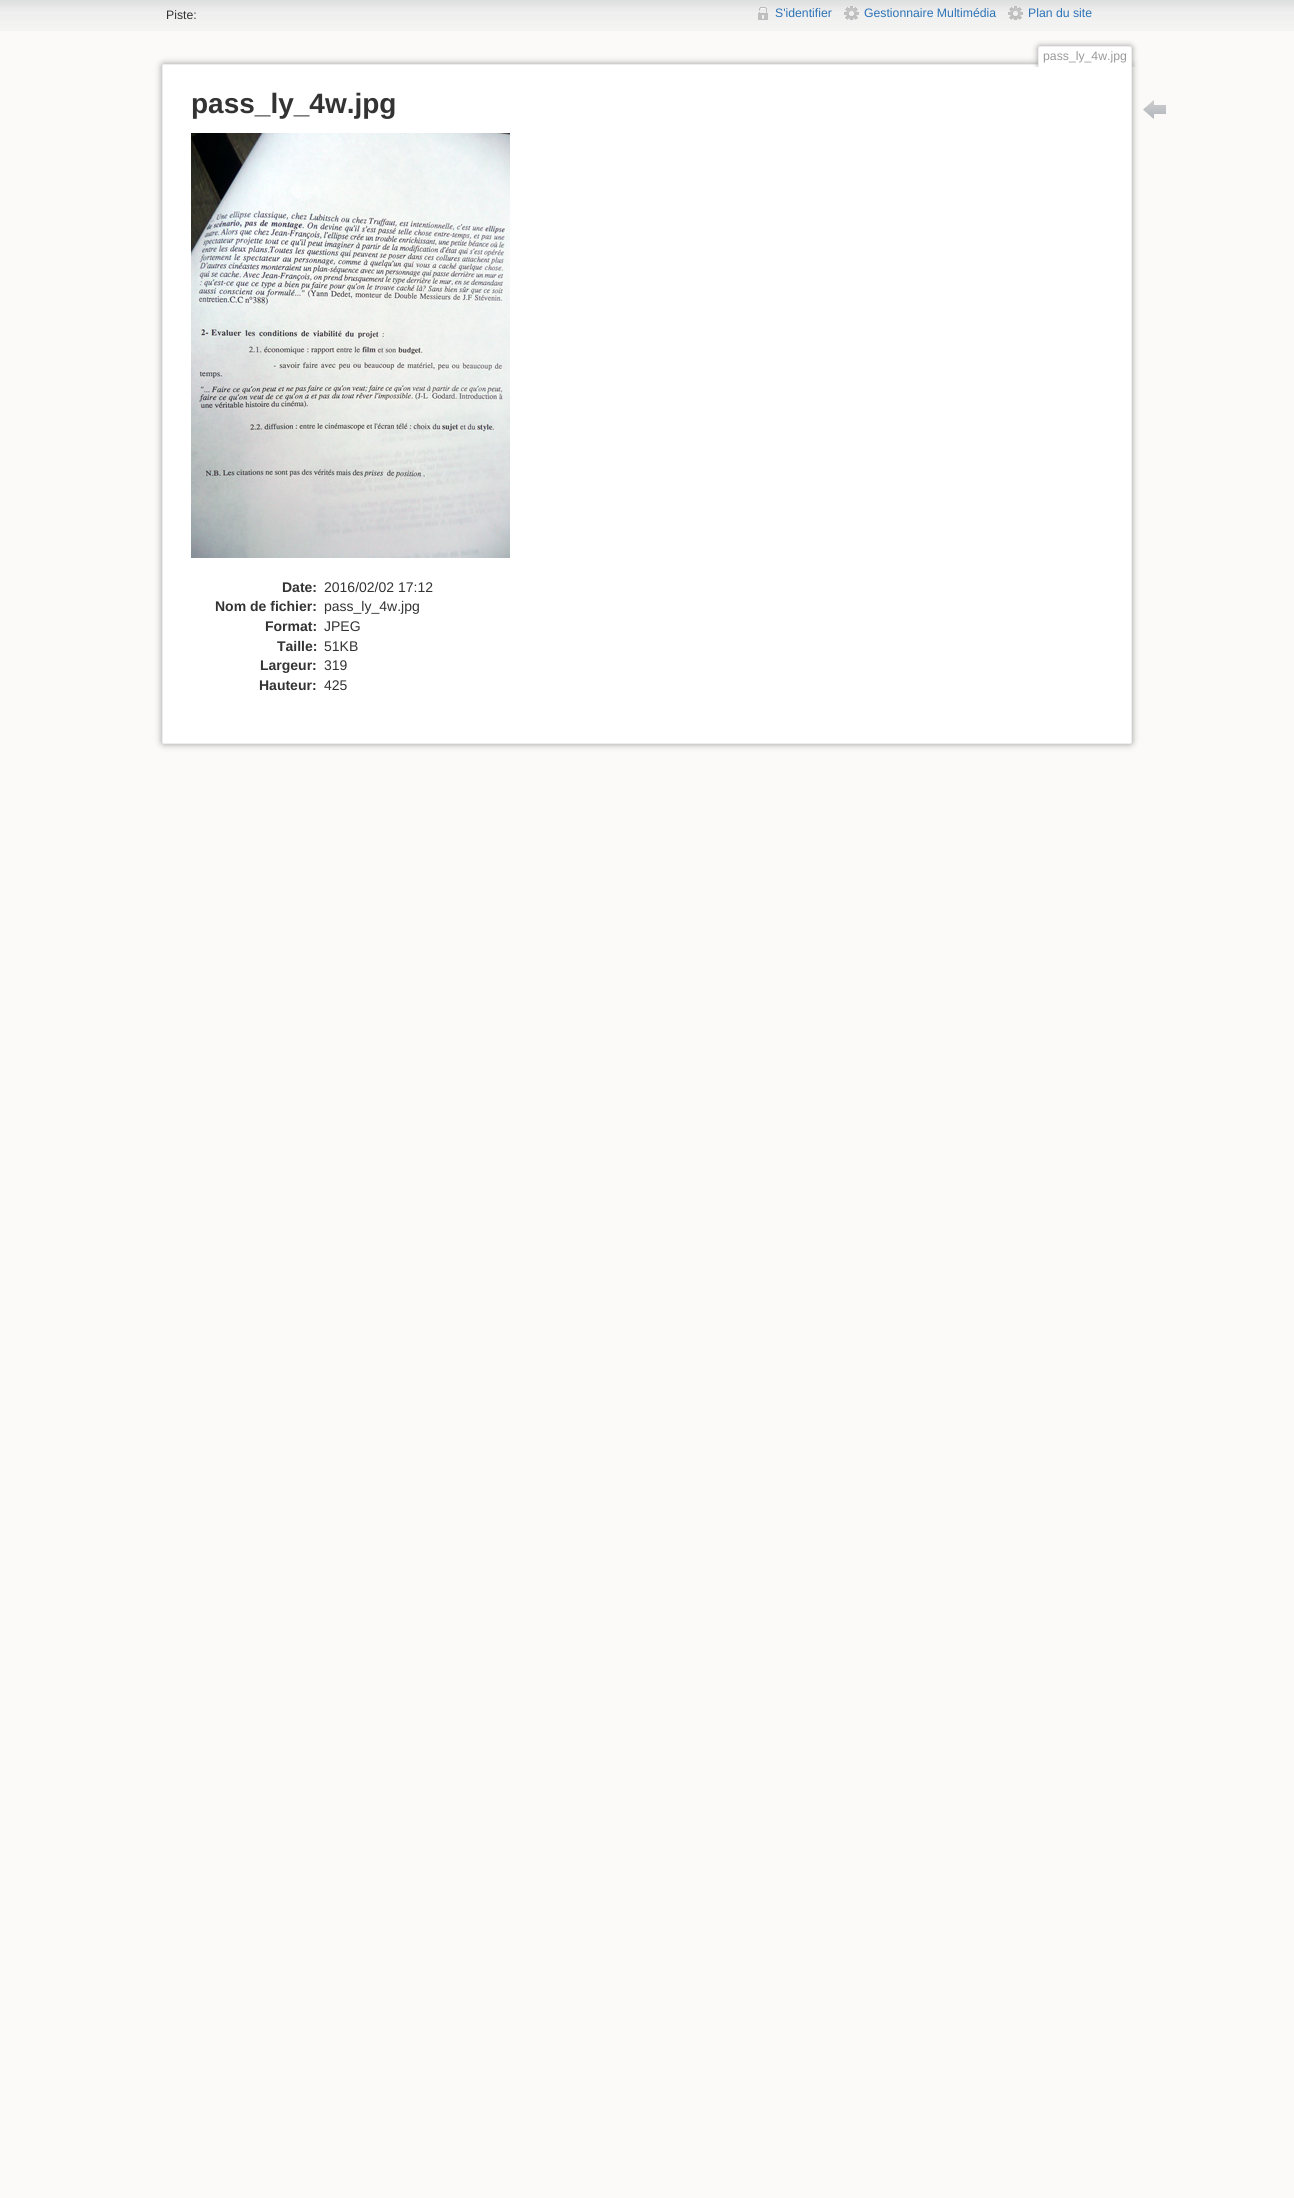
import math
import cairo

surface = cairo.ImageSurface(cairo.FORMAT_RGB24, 1294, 2198)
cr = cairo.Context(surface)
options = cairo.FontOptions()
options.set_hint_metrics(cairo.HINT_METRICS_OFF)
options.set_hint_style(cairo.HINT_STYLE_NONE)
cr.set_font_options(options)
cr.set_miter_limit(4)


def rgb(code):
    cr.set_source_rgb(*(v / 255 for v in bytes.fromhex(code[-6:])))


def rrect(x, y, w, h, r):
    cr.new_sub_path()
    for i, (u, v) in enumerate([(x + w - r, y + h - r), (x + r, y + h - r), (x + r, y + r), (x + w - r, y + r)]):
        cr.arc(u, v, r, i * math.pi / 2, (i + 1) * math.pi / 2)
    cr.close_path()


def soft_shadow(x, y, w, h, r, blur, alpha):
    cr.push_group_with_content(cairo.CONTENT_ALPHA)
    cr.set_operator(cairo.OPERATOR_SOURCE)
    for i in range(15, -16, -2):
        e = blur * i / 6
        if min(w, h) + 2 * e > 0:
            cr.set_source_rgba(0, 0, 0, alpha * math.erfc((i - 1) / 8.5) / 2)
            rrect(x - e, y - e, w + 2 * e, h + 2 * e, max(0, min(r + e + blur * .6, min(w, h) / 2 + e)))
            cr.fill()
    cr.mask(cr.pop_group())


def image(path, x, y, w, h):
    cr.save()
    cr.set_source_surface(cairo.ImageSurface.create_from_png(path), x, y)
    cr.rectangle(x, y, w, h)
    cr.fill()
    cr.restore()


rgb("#fbfaf9")
cr.paint()
image("img/1.png", 0, 0, 1294, 31)
image("img/2.png", 758, 7, 10, 13)
image("img/3.png", 844, 6, 15, 14)
image("img/3.png", 1008, 6, 15, 14)
rgb("#999999")
soft_shadow(162, 64, 970, 680, 2, 3.5, 1)
rgb("#ffffff")
rrect(162.5, 64.5, 969, 679, 1.5)
cr.fill_preserve()
rgb("#eeeeee")
cr.set_line_width(1)
cr.stroke()
cr.save()
cr.rectangle(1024, 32, 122, 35)
cr.clip()
rgb("#999999")
soft_shadow(1038, 46, 94, 21, 2, 3, 1)
cr.restore()
rgb("#ffffff")
cr.new_path()
cr.move_to(1040, 47)
cr.line_to(1130, 47)
cr.curve_to(1130.5, 47, 1131, 47.5, 1131, 48)
cr.line_to(1131, 67)
cr.line_to(1039, 67)
cr.line_to(1039, 48)
cr.curve_to(1039, 47.5, 1039.5, 47, 1040, 47)
cr.close_path()
cr.fill()
for x, y, w, h, color in [
    (1039, 46, 92, 1, "#eeeeee"),
    (1131, 47, 1, 20, "#eeeeee"),
    (1038, 47, 1, 20, "#eeeeee"),
]:
    rgb(color)
    cr.rectangle(x, y, w, h)
    cr.fill()
image("img/4.png", 191, 133, 319, 425)
image("img/5.png", 1143, 100, 23, 19)
cr.select_font_face("Liberation Sans")
cr.set_font_size(12.25)
rgb("#333333")
cr.move_to(166, 19)
cr.show_text("Piste:")
rgb("#2b73b7")
for x, y, s in [
    (775, 17, "S'identifier"),
    (864, 17, "Gestionnaire Multimédia"),
    (1028, 17, "Plan du site"),
]:
    cr.move_to(x, y)
    cr.show_text(s)
rgb("#999999")
cr.move_to(1043, 60)
cr.show_text("pass_ly_4w.jpg")
cr.select_font_face("Liberation Sans", cairo.FONT_SLANT_NORMAL, cairo.FONT_WEIGHT_BOLD)
cr.set_font_size(28)
rgb("#333333")
cr.move_to(191, 113)
cr.show_text("pass_ly_4w.jpg")
cr.set_font_size(14)
cr.move_to(282, 592)
cr.show_text("Date:")
cr.select_font_face("Liberation Sans")
cr.move_to(324, 592)
cr.show_text("2016/02/02 17:12")
cr.select_font_face("Liberation Sans", cairo.FONT_SLANT_NORMAL, cairo.FONT_WEIGHT_BOLD)
cr.move_to(215, 611)
cr.show_text("Nom de fichier:")
cr.select_font_face("Liberation Sans")
cr.move_to(324, 611)
cr.show_text("pass_ly_4w.jpg")
cr.select_font_face("Liberation Sans", cairo.FONT_SLANT_NORMAL, cairo.FONT_WEIGHT_BOLD)
cr.move_to(265, 631)
cr.show_text("Format:")
cr.select_font_face("Liberation Sans")
cr.move_to(324, 631)
cr.show_text("JPEG")
cr.select_font_face("Liberation Sans", cairo.FONT_SLANT_NORMAL, cairo.FONT_WEIGHT_BOLD)
cr.move_to(277, 651)
cr.show_text("Taille:")
cr.select_font_face("Liberation Sans")
cr.move_to(324, 651)
cr.show_text("51KB")
cr.select_font_face("Liberation Sans", cairo.FONT_SLANT_NORMAL, cairo.FONT_WEIGHT_BOLD)
cr.move_to(260, 670)
cr.show_text("Largeur:")
cr.select_font_face("Liberation Sans")
cr.move_to(324, 670)
cr.show_text("319")
cr.select_font_face("Liberation Sans", cairo.FONT_SLANT_NORMAL, cairo.FONT_WEIGHT_BOLD)
cr.move_to(259, 690)
cr.show_text("Hauteur:")
cr.select_font_face("Liberation Sans")
cr.move_to(324, 690)
cr.show_text("425")
surface.write_to_png("page.png")
